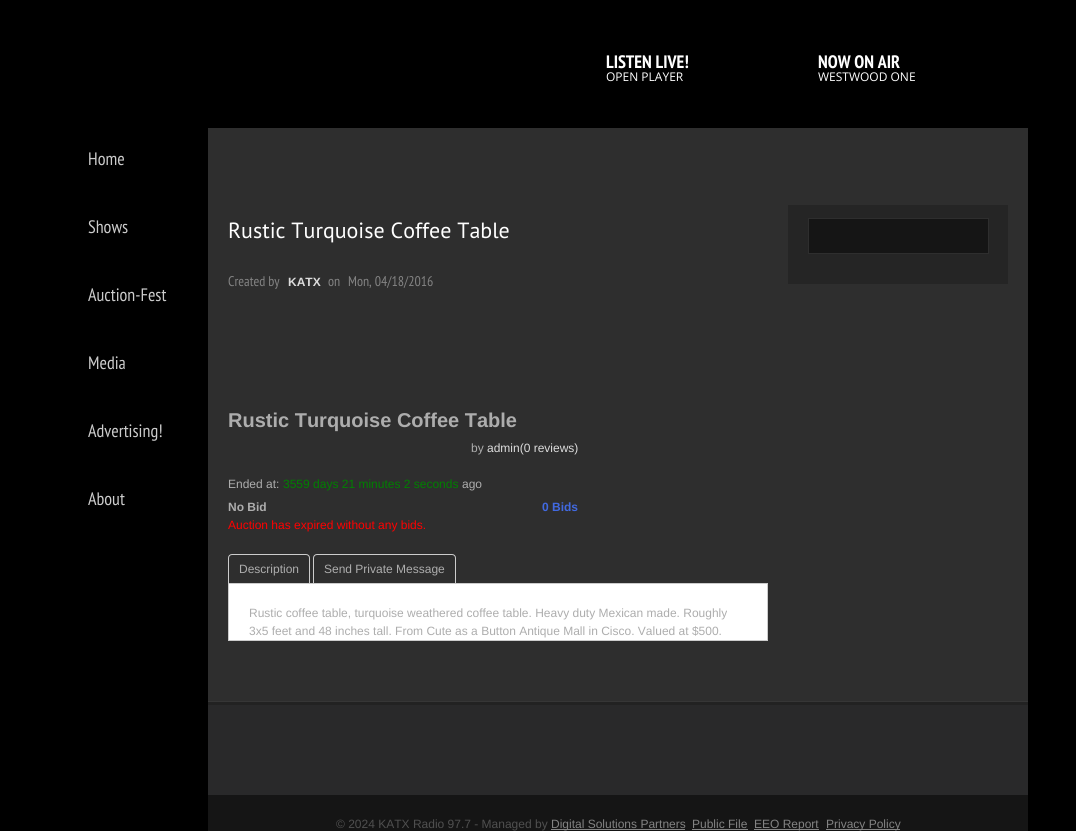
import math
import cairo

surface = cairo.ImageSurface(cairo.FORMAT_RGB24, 1076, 831)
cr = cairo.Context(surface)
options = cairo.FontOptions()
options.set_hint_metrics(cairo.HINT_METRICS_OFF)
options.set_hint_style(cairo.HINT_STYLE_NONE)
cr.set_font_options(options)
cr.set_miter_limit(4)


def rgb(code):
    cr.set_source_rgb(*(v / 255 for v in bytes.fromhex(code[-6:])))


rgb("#000000")
cr.paint()
rgb("#2e2e2e")
cr.rectangle(208, 128, 820, 573)
cr.fill()
rgb("#363636")
cr.rectangle(208, 701, 820, 1)
cr.fill()
rgb("#ffffff")
cr.rectangle(228.5, 583.5, 539, 57)
cr.fill_preserve()
rgb("#cccccc")
cr.set_line_width(1)
cr.stroke()
cr.new_path()
cr.move_to(232, 554.5)
cr.line_to(306, 554.5)
cr.curve_to(308, 554.5, 309.5, 556, 309.5, 558)
cr.line_to(309.5, 583.5)
cr.line_to(228.5, 583.5)
cr.line_to(228.5, 558)
cr.curve_to(228.5, 556, 230, 554.5, 232, 554.5)
cr.close_path()
cr.stroke()
cr.new_path()
cr.move_to(317, 554.5)
cr.line_to(452, 554.5)
cr.curve_to(454, 554.5, 455.5, 556, 455.5, 558)
cr.line_to(455.5, 583.5)
cr.line_to(313.5, 583.5)
cr.line_to(313.5, 558)
cr.curve_to(313.5, 556, 315, 554.5, 317, 554.5)
cr.close_path()
cr.stroke()
rgb("#252525")
cr.rectangle(788, 205, 220, 79)
cr.fill()
rgb("#151515")
cr.rectangle(808.5, 218.5, 180, 35)
cr.fill_preserve()
rgb("#2e2e2e")
cr.stroke()
for x, y, w, h, color in [
    (208, 705, 820, 90, "#29292a"),
    (208, 702, 820, 3, "#222222"),
    (208, 795, 820, 36, "#151515"),
    (551, 829, 134, 1, "#858585"),
    (692, 829, 56, 1, "#858585"),
    (754, 829, 65, 1, "#858585"),
    (826, 829, 74, 1, "#858585"),
]:
    rgb(color)
    cr.rectangle(x, y, w, h)
    cr.fill()
cr.select_font_face("PT Sans Narrow", cairo.FONT_SLANT_NORMAL, cairo.FONT_WEIGHT_BOLD)
cr.set_font_size(18)
rgb("#ffffff")
cr.move_to(606, 68)
cr.show_text("LISTEN LIVE!")
cr.select_font_face("Open Sans")
cr.set_font_size(12)
cr.move_to(606, 81)
cr.show_text("OPEN PLAYER")
cr.select_font_face("PT Sans Narrow", cairo.FONT_SLANT_NORMAL, cairo.FONT_WEIGHT_BOLD)
cr.set_font_size(18)
cr.move_to(818, 68)
cr.show_text("NOW ON AIR")
cr.select_font_face("Open Sans")
cr.set_font_size(12)
cr.move_to(818, 81)
cr.show_text("WESTWOOD ONE")
cr.select_font_face("PT Sans Narrow")
cr.set_font_size(18)
rgb("#cccccc")
for x, y, s in [
    (88, 165, "Home"),
    (88, 233, "Shows"),
    (88, 301, "Auction-Fest"),
    (88, 369, "Media"),
    (88, 437, "Advertising!"),
    (88, 505, "About"),
]:
    cr.move_to(x, y)
    cr.show_text(s)
cr.select_font_face("PT Sans")
cr.set_font_size(22)
rgb("#ffffff")
cr.move_to(228, 238)
cr.show_text("Rustic Turquoise Coffee Table")
cr.select_font_face("PT Sans Narrow")
cr.set_font_size(14)
rgb("#838383")
cr.move_to(228, 286)
cr.show_text("Created by")
cr.select_font_face("Liberation Sans", cairo.FONT_SLANT_NORMAL, cairo.FONT_WEIGHT_BOLD)
cr.set_font_size(12)
rgb("#dcdcdc")
cr.move_to(288, 286)
cr.show_text("KATX")
cr.select_font_face("PT Sans Narrow")
cr.set_font_size(14)
rgb("#838383")
cr.move_to(328, 286)
cr.show_text("on")
cr.move_to(348, 286)
cr.show_text("Mon, 04/18/2016")
cr.select_font_face("Liberation Sans", cairo.FONT_SLANT_NORMAL, cairo.FONT_WEIGHT_BOLD)
cr.set_font_size(20)
rgb("#adadad")
cr.move_to(228, 427)
cr.show_text("Rustic Turquoise Coffee Table")
cr.select_font_face("Liberation Sans")
cr.set_font_size(12)
cr.move_to(471, 452)
cr.show_text("by")
rgb("#dcdcdc")
cr.move_to(487, 452)
cr.show_text("admin(0 reviews)")
rgb("#adadad")
cr.move_to(228, 488)
cr.show_text("Ended at:")
rgb("#008000")
cr.move_to(283, 488)
cr.show_text("3559 days 21 minutes 2 seconds")
rgb("#adadad")
cr.move_to(462, 488)
cr.show_text("ago")
cr.select_font_face("Liberation Sans", cairo.FONT_SLANT_NORMAL, cairo.FONT_WEIGHT_BOLD)
cr.move_to(228, 511)
cr.show_text("No Bid")
rgb("#4169e1")
cr.move_to(542, 511)
cr.show_text("0 Bids")
cr.select_font_face("Liberation Sans")
rgb("#ff0000")
cr.move_to(228, 529)
cr.show_text("Auction has expired without any bids.")
rgb("#adadad")
for x, y, s in [
    (239, 573, "Description"),
    (324, 573, "Send Private Message"),
    (249, 617, "Rustic coffee table, turquoise weathered coffee table. Heavy duty Mexican made. Roughly"),
    (249, 635, "3x5 feet and 48 inches tall. From Cute as a Button Antique Mall in Cisco. Valued at $500."),
]:
    cr.move_to(x, y)
    cr.show_text(s)
rgb("#4f4f4f")
cr.move_to(336, 828)
cr.show_text("© 2024 KATX Radio 97.7 - Managed by")
rgb("#838383")
for x, y, s in [
    (551, 828, "Digital Solutions Partners"),
    (692, 828, "Public File"),
    (754, 828, "EEO Report"),
    (826, 828, "Privacy Policy"),
]:
    cr.move_to(x, y)
    cr.show_text(s)
surface.write_to_png("page.png")
